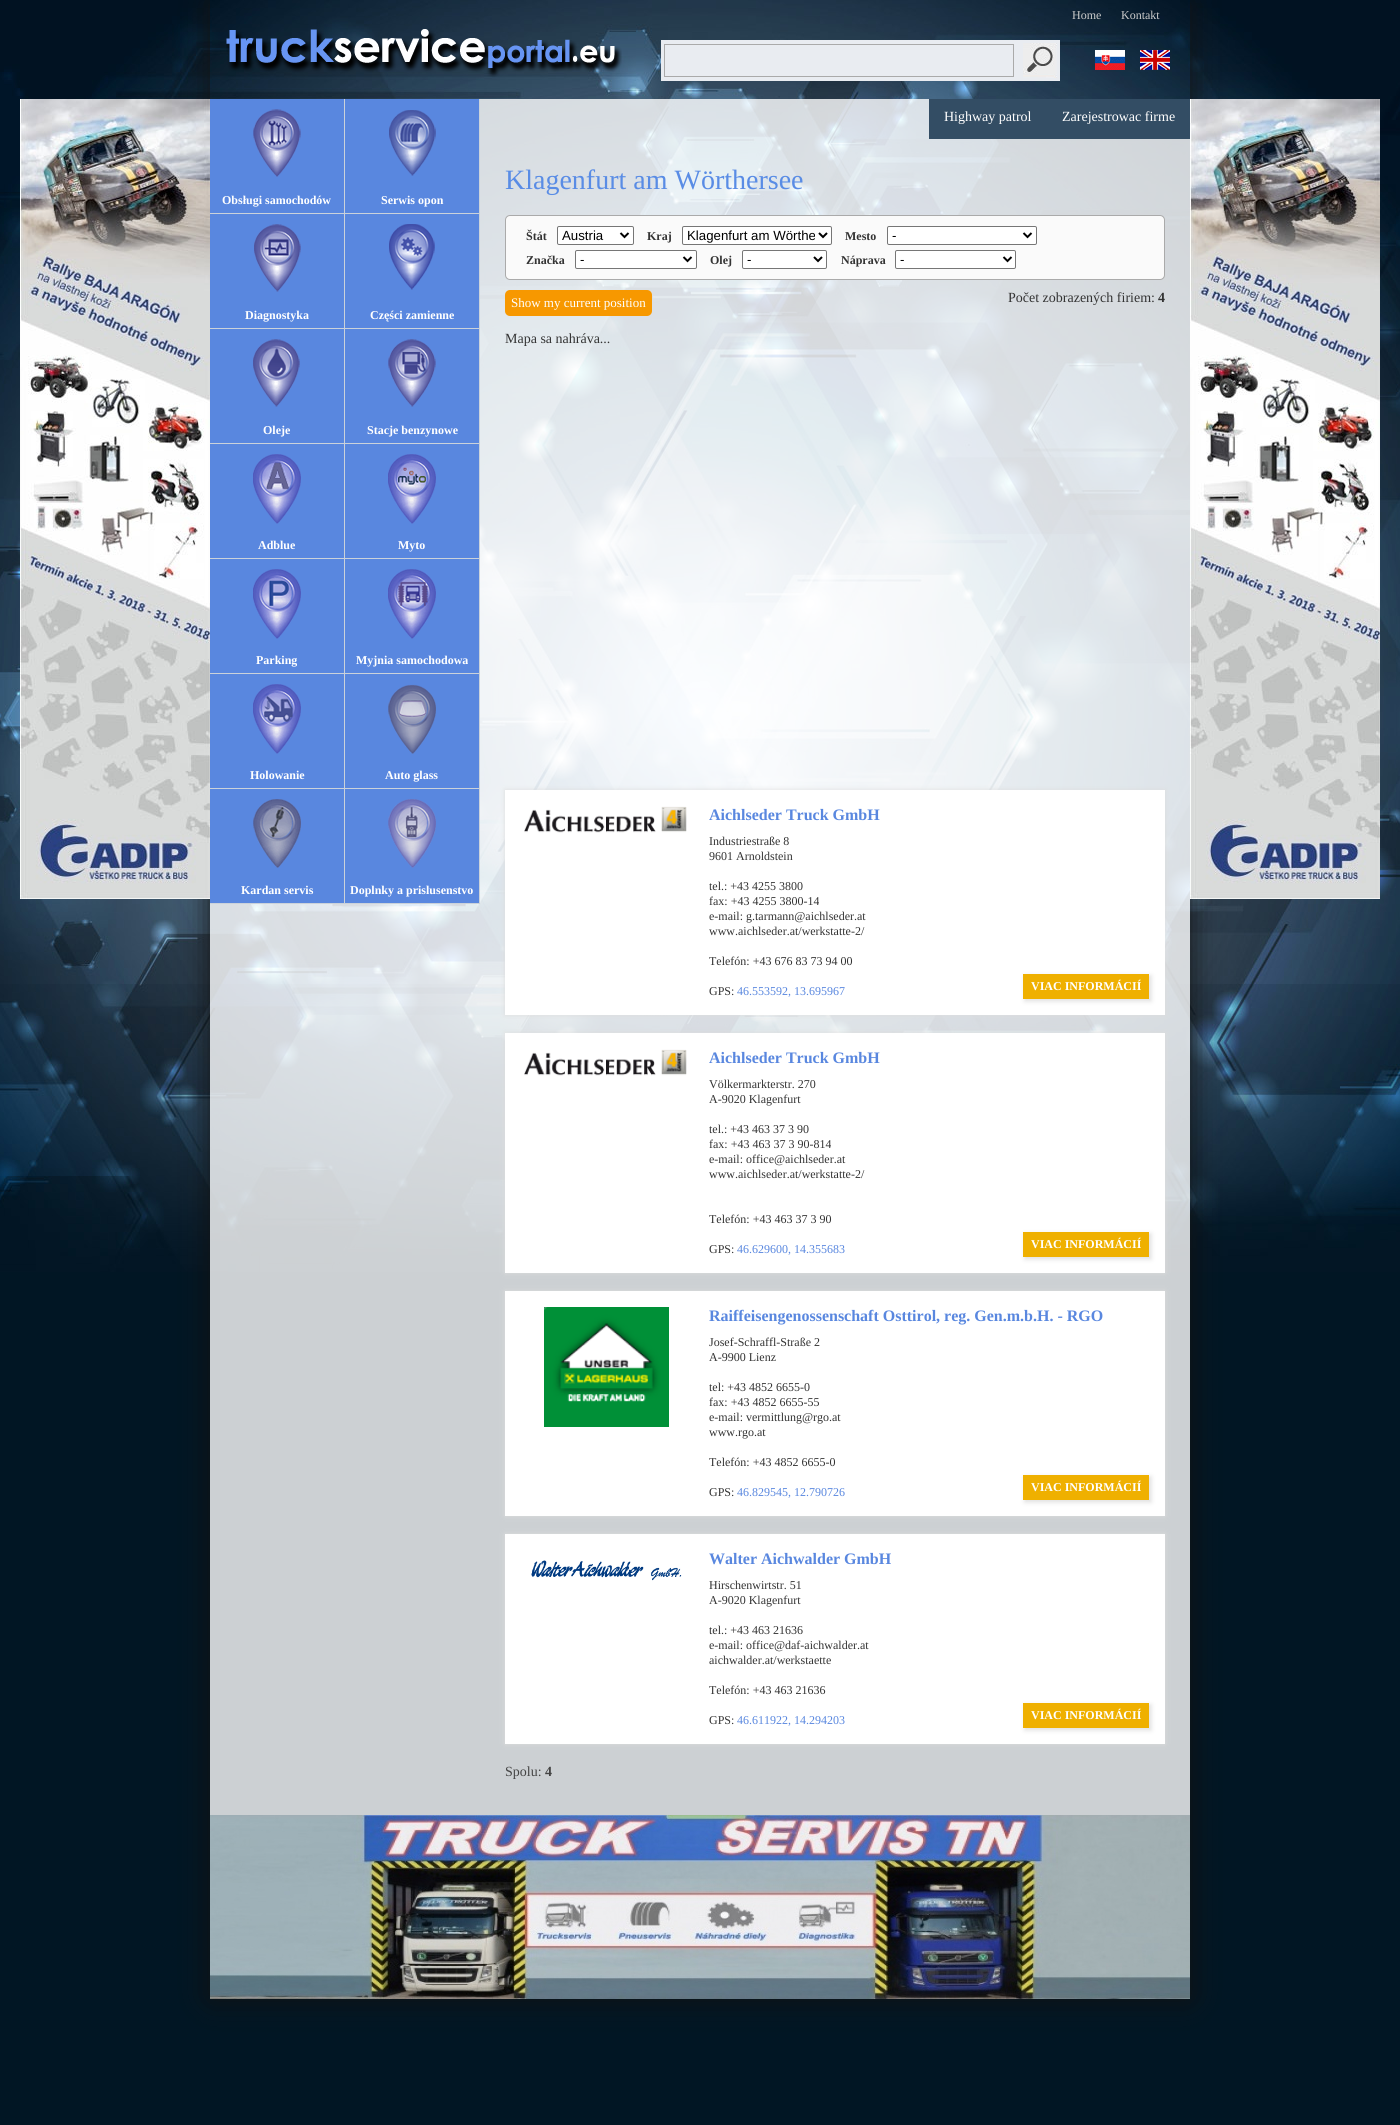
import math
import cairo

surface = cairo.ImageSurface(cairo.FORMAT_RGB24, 1400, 2125)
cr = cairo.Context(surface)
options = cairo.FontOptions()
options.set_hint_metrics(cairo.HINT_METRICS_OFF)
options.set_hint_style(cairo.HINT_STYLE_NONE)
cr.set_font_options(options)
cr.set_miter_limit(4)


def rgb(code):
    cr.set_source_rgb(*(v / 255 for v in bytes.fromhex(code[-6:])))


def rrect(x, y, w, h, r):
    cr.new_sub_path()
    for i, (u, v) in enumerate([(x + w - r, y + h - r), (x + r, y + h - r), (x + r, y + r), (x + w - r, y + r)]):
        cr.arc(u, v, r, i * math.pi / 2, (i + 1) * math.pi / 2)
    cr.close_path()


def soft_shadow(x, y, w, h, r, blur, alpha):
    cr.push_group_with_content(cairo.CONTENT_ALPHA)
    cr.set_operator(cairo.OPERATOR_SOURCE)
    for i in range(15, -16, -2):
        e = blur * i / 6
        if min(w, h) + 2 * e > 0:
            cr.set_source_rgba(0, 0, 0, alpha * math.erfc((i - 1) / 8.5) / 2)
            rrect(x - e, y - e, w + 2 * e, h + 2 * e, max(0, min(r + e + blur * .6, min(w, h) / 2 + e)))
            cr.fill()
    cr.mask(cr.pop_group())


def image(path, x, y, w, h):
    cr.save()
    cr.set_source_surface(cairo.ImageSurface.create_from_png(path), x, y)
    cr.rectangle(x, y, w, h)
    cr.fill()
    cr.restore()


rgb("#011624")
cr.paint()
image("img/1.png", 0, 0, 1400, 1272)
cr.save()
cr.set_fill_rule(cairo.FILL_RULE_EVEN_ODD)
cr.new_path()
cr.move_to(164, 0)
cr.line_to(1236, 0)
cr.line_to(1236, 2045)
cr.line_to(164, 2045)
cr.close_path()
cr.move_to(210, 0)
cr.line_to(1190, 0)
cr.line_to(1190, 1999)
cr.line_to(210, 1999)
cr.close_path()
cr.clip()
rgb("#111111")
soft_shadow(210, 0, 980, 1999, 0, 15, 1)
cr.restore()
image("img/2.png", 226, 29, 396, 48)
image("img/3.png", 661, 40, 399, 41)
cr.rectangle(664.5, 44.5, 349, 32)
rgb("#aaaaaa")
cr.set_line_width(1)
cr.stroke()
image("img/4.png", 1095, 50, 30, 20)
image("img/5.png", 1140, 50, 30, 20)
cr.set_source_rgba(1, 1, 1, 0.8)
cr.rectangle(210, 99, 980, 1716)
cr.fill()
rgb("#334d64")
cr.rectangle(929, 99, 261, 40)
cr.fill()
image("img/6.png", 20, 99, 190, 800)
rgb("#5987df")
cr.rectangle(210, 99, 134, 114)
cr.fill()
image("img/7.png", 253, 109, 48, 68)
for x, y, w, h, color in [
    (344, 99, 1, 805, "#cbd2da"),
    (210, 213, 135, 1, "#cbd2da"),
    (345, 99, 134, 114, "#5987df"),
]:
    rgb(color)
    cr.rectangle(x, y, w, h)
    cr.fill()
image("img/8.png", 389, 110, 47, 66)
for x, y, w, h, color in [
    (479, 99, 1, 805, "#cbd2da"),
    (345, 213, 135, 1, "#cbd2da"),
    (210, 214, 134, 114, "#5987df"),
]:
    rgb(color)
    cr.rectangle(x, y, w, h)
    cr.fill()
image("img/9.png", 254, 224, 47, 68)
rgb("#cbd2da")
cr.rectangle(210, 328, 270, 1)
cr.fill()
rgb("#5987df")
cr.rectangle(345, 214, 134, 114)
cr.fill()
image("img/10.png", 389, 224, 46, 66)
cr.rectangle(210, 329, 134, 114)
cr.fill()
image("img/11.png", 253, 339, 47, 68)
rgb("#cbd2da")
cr.rectangle(210, 443, 270, 1)
cr.fill()
rgb("#5987df")
cr.rectangle(345, 329, 134, 114)
cr.fill()
image("img/12.png", 388, 339, 48, 68)
cr.rectangle(210, 444, 134, 114)
cr.fill()
image("img/13.png", 253, 454, 48, 70)
rgb("#cbd2da")
cr.rectangle(210, 558, 270, 1)
cr.fill()
rgb("#5987df")
cr.rectangle(345, 444, 134, 114)
cr.fill()
image("img/14.png", 388, 454, 48, 70)
cr.rectangle(210, 559, 134, 114)
cr.fill()
image("img/15.png", 253, 569, 48, 70)
rgb("#cbd2da")
cr.rectangle(210, 673, 270, 1)
cr.fill()
rgb("#5987df")
cr.rectangle(345, 559, 134, 114)
cr.fill()
image("img/16.png", 388, 569, 48, 70)
cr.rectangle(210, 674, 134, 114)
cr.fill()
image("img/17.png", 253, 684, 48, 70)
rgb("#cbd2da")
cr.rectangle(210, 788, 270, 1)
cr.fill()
rgb("#5987df")
cr.rectangle(345, 674, 134, 114)
cr.fill()
image("img/18.png", 388, 684, 48, 70)
cr.rectangle(210, 789, 134, 114)
cr.fill()
image("img/19.png", 253, 799, 48, 69)
rgb("#cbd2da")
cr.rectangle(210, 903, 270, 1)
cr.fill()
rgb("#5987df")
cr.rectangle(345, 789, 134, 114)
cr.fill()
image("img/20.png", 388, 799, 48, 69)
rgb("#fafafa")
rrect(505.5, 215.5, 659, 64, 4.5)
cr.fill_preserve()
rgb("#aaaaaa")
cr.stroke()
rgb("#ffffff")
rrect(557.5, 226.5, 76, 18, 1.5)
cr.fill_preserve()
rgb("#767676")
cr.stroke()
cr.new_path()
cr.move_to(620.5, 233)
cr.line_to(624.5, 237)
cr.line_to(628.5, 233)
rgb("#000000")
cr.set_line_width(2)
cr.stroke()
rgb("#ffffff")
rrect(682.5, 226.5, 149, 18, 1.5)
cr.fill_preserve()
rgb("#767676")
cr.set_line_width(1)
cr.stroke()
cr.new_path()
cr.move_to(819, 233)
cr.line_to(823, 237)
cr.line_to(827, 233)
rgb("#000000")
cr.set_line_width(2)
cr.stroke()
rgb("#ffffff")
rrect(887.5, 226.5, 149, 18, 1.5)
cr.fill_preserve()
rgb("#767676")
cr.set_line_width(1)
cr.stroke()
cr.new_path()
cr.move_to(1023.5, 233)
cr.line_to(1027.5, 237)
cr.line_to(1031.5, 233)
rgb("#000000")
cr.set_line_width(2)
cr.stroke()
rgb("#ffffff")
rrect(575.5, 250.5, 121, 18, 1.5)
cr.fill_preserve()
rgb("#767676")
cr.set_line_width(1)
cr.stroke()
cr.new_path()
cr.move_to(683.5, 257)
cr.line_to(687.5, 261)
cr.line_to(691.5, 257)
rgb("#000000")
cr.set_line_width(2)
cr.stroke()
rgb("#ffffff")
rrect(742.5, 250.5, 84, 18, 1.5)
cr.fill_preserve()
rgb("#767676")
cr.set_line_width(1)
cr.stroke()
cr.new_path()
cr.move_to(814, 257)
cr.line_to(818, 261)
cr.line_to(822, 257)
rgb("#000000")
cr.set_line_width(2)
cr.stroke()
rgb("#ffffff")
rrect(895.5, 250.5, 120, 18, 1.5)
cr.fill_preserve()
rgb("#767676")
cr.set_line_width(1)
cr.stroke()
cr.new_path()
cr.move_to(1003.5, 257)
cr.line_to(1007.5, 261)
cr.line_to(1011.5, 257)
rgb("#000000")
cr.set_line_width(2)
cr.stroke()
rgb("#f79800")
rrect(505, 290, 147, 26, 5)
cr.fill()
rgb("#dddddd")
soft_shadow(505, 790, 660, 225, 0, 2.5, 1)
rgb("#ffffff")
cr.rectangle(505, 790, 660, 225)
cr.fill()
image("img/21.png", 524, 806, 163, 27)
rgb("#dddddd")
soft_shadow(1025, 976, 126, 25, 0, 2.5, 1)
rgb("#efb000")
cr.rectangle(1023, 974, 126, 25)
cr.fill()
rgb("#dddddd")
soft_shadow(505, 1033, 660, 240, 0, 2.5, 1)
rgb("#ffffff")
cr.rectangle(505, 1033, 660, 240)
cr.fill()
image("img/21.png", 524, 1049, 163, 27)
rgb("#dddddd")
soft_shadow(1025, 1234, 126, 25, 0, 2.5, 1)
rgb("#efb000")
cr.rectangle(1023, 1232, 126, 25)
cr.fill()
rgb("#dddddd")
soft_shadow(505, 1291, 660, 225, 0, 2.5, 1)
rgb("#ffffff")
cr.rectangle(505, 1291, 660, 225)
cr.fill()
image("img/22.png", 544, 1307, 125, 120)
rgb("#dddddd")
soft_shadow(1025, 1477, 126, 25, 0, 2.5, 1)
rgb("#efb000")
cr.rectangle(1023, 1475, 126, 25)
cr.fill()
rgb("#dddddd")
soft_shadow(505, 1534, 660, 210, 0, 2.5, 1)
rgb("#ffffff")
cr.rectangle(505, 1534, 660, 210)
cr.fill()
image("img/23.png", 531, 1560, 151, 21)
rgb("#dddddd")
soft_shadow(1025, 1705, 126, 25, 0, 2.5, 1)
rgb("#efb000")
cr.rectangle(1023, 1703, 126, 25)
cr.fill()
image("img/6.png", 1190, 99, 190, 800)
image("img/24.png", 210, 1815, 980, 184)
cr.select_font_face("Liberation Serif")
cr.set_font_size(12)
rgb("#cccccc")
cr.move_to(1072, 19)
cr.show_text("Home")
cr.move_to(1121, 19)
cr.show_text("Kontakt")
cr.set_font_size(14)
rgb("#ffffff")
cr.move_to(944, 121)
cr.show_text("Highway patrol")
cr.move_to(1062, 121)
cr.show_text("Zarejestrowac firme")
cr.select_font_face("Liberation Serif", cairo.FONT_SLANT_NORMAL, cairo.FONT_WEIGHT_BOLD)
cr.set_font_size(12)
for x, y, s in [
    (222, 204, "Obsługi samochodów"),
    (381, 204, "Serwis opon"),
    (245, 319, "Diagnostyka"),
    (370, 319, "Części zamienne"),
    (263, 434, "Oleje"),
    (367, 434, "Stacje benzynowe"),
    (258, 549, "Adblue"),
    (398, 549, "Myto"),
    (256, 664, "Parking"),
    (356, 664, "Myjnia samochodowa"),
    (250, 779, "Holowanie"),
    (385, 779, "Auto glass"),
    (241, 894, "Kardan servis"),
    (350, 894, "Doplnky a prislusenstvo"),
]:
    cr.move_to(x, y)
    cr.show_text(s)
cr.select_font_face("Liberation Serif")
cr.set_font_size(28)
rgb("#598ce5")
cr.move_to(505, 189)
cr.show_text("Klagenfurt am Wörthersee")
cr.select_font_face("Liberation Serif", cairo.FONT_SLANT_NORMAL, cairo.FONT_WEIGHT_BOLD)
cr.set_font_size(12)
rgb("#333333")
cr.move_to(526, 240)
cr.show_text("Štát")
cr.select_font_face("Liberation Sans")
cr.set_font_size(13.25)
rgb("#000000")
cr.move_to(562, 240)
cr.show_text("Austria")
cr.select_font_face("Liberation Serif", cairo.FONT_SLANT_NORMAL, cairo.FONT_WEIGHT_BOLD)
cr.set_font_size(12)
rgb("#333333")
cr.move_to(647, 240)
cr.show_text("Kraj")
cr.save()
cr.rectangle(687, 227, 128, 17)
cr.clip()
cr.select_font_face("Liberation Sans")
cr.set_font_size(13.25)
rgb("#000000")
cr.move_to(687, 240)
cr.show_text("Klagenfurt am Wörthe")
cr.restore()
cr.move_to(845, 240)
cr.show_text("Mesto")
cr.select_font_face("Liberation Sans")
cr.set_font_size(13.25)
rgb("#000000")
cr.move_to(892, 240)
cr.show_text("-")
cr.select_font_face("Liberation Serif", cairo.FONT_SLANT_NORMAL, cairo.FONT_WEIGHT_BOLD)
cr.set_font_size(12)
rgb("#333333")
cr.move_to(526, 264)
cr.show_text("Značka")
cr.select_font_face("Liberation Sans")
cr.set_font_size(13.25)
rgb("#000000")
cr.move_to(580, 264)
cr.show_text("-")
cr.select_font_face("Liberation Serif", cairo.FONT_SLANT_NORMAL, cairo.FONT_WEIGHT_BOLD)
cr.set_font_size(12)
rgb("#333333")
cr.move_to(710, 264)
cr.show_text("Olej")
cr.select_font_face("Liberation Sans")
cr.set_font_size(13.25)
rgb("#000000")
cr.move_to(747, 264)
cr.show_text("-")
cr.select_font_face("Liberation Serif", cairo.FONT_SLANT_NORMAL, cairo.FONT_WEIGHT_BOLD)
cr.set_font_size(12)
rgb("#333333")
cr.move_to(841, 264)
cr.show_text("Náprava")
cr.select_font_face("Liberation Sans")
cr.set_font_size(13.25)
rgb("#000000")
cr.move_to(900, 264)
cr.show_text("-")
cr.select_font_face("Liberation Serif")
cr.set_font_size(13)
rgb("#ffffff")
cr.move_to(511, 307)
cr.show_text("Show my current position")
cr.set_font_size(14)
rgb("#333333")
cr.move_to(1008, 302)
cr.show_text("Počet zobrazených firiem:")
cr.select_font_face("Liberation Serif", cairo.FONT_SLANT_NORMAL, cairo.FONT_WEIGHT_BOLD)
cr.move_to(1158, 302)
cr.show_text("4")
cr.select_font_face("Liberation Serif")
cr.move_to(505, 343)
cr.show_text("Mapa sa nahráva...")
cr.select_font_face("Liberation Serif", cairo.FONT_SLANT_NORMAL, cairo.FONT_WEIGHT_BOLD)
cr.set_font_size(16)
rgb("#5987df")
cr.move_to(709, 820)
cr.show_text("Aichlseder Truck GmbH")
cr.select_font_face("Liberation Serif")
cr.set_font_size(12)
rgb("#333333")
for x, y, s in [
    (709, 845, "Industriestraße 8"),
    (709, 860, "9601 Arnoldstein"),
    (709, 890, "tel.: +43 4255 3800"),
    (709, 905, "fax: +43 4255 3800-14"),
    (709, 920, "e-mail: g.tarmann@aichlseder.at"),
    (709, 935, "www.aichlseder.at/werkstatte-2/"),
    (709, 965, "Telefón: +43 676 83 73 94 00"),
    (709, 995, "GPS:"),
]:
    cr.move_to(x, y)
    cr.show_text(s)
rgb("#5987df")
cr.move_to(737, 995)
cr.show_text("46.553592, 13.695967")
cr.select_font_face("Liberation Serif", cairo.FONT_SLANT_NORMAL, cairo.FONT_WEIGHT_BOLD)
rgb("#ffffff")
cr.move_to(1031, 990)
cr.show_text("VIAC INFORMÁCIÍ")
cr.set_font_size(16)
rgb("#5987df")
cr.move_to(709, 1063)
cr.show_text("Aichlseder Truck GmbH")
cr.select_font_face("Liberation Serif")
cr.set_font_size(12)
rgb("#333333")
for x, y, s in [
    (709, 1088, "Völkermarkterstr. 270"),
    (709, 1103, "A-9020 Klagenfurt"),
    (709, 1133, "tel.: +43 463 37 3 90"),
    (709, 1148, "fax: +43 463 37 3 90-814"),
    (709, 1163, "e-mail: office@aichlseder.at"),
    (709, 1178, "www.aichlseder.at/werkstatte-2/"),
    (709, 1223, "Telefón: +43 463 37 3 90"),
    (709, 1253, "GPS:"),
]:
    cr.move_to(x, y)
    cr.show_text(s)
rgb("#5987df")
cr.move_to(737, 1253)
cr.show_text("46.629600, 14.355683")
cr.select_font_face("Liberation Serif", cairo.FONT_SLANT_NORMAL, cairo.FONT_WEIGHT_BOLD)
rgb("#ffffff")
cr.move_to(1031, 1248)
cr.show_text("VIAC INFORMÁCIÍ")
cr.set_font_size(16)
rgb("#5987df")
cr.move_to(709, 1321)
cr.show_text("Raiffeisengenossenschaft Osttirol, reg. Gen.m.b.H. - RGO")
cr.select_font_face("Liberation Serif")
cr.set_font_size(12)
rgb("#333333")
for x, y, s in [
    (709, 1346, "Josef-Schraffl-Straße 2"),
    (709, 1361, "A-9900 Lienz"),
    (709, 1391, "tel: +43 4852 6655-0"),
    (709, 1406, "fax: +43 4852 6655-55"),
    (709, 1421, "e-mail: vermittlung@rgo.at"),
    (709, 1436, "www.rgo.at"),
    (709, 1466, "Telefón: +43 4852 6655-0"),
    (709, 1496, "GPS:"),
]:
    cr.move_to(x, y)
    cr.show_text(s)
rgb("#5987df")
cr.move_to(737, 1496)
cr.show_text("46.829545, 12.790726")
cr.select_font_face("Liberation Serif", cairo.FONT_SLANT_NORMAL, cairo.FONT_WEIGHT_BOLD)
rgb("#ffffff")
cr.move_to(1031, 1491)
cr.show_text("VIAC INFORMÁCIÍ")
cr.set_font_size(16)
rgb("#5987df")
cr.move_to(709, 1564)
cr.show_text("Walter Aichwalder GmbH")
cr.select_font_face("Liberation Serif")
cr.set_font_size(12)
rgb("#333333")
for x, y, s in [
    (709, 1589, "Hirschenwirtstr. 51"),
    (709, 1604, "A-9020 Klagenfurt"),
    (709, 1634, "tel.: +43 463 21636"),
    (709, 1649, "e-mail: office@daf-aichwalder.at"),
    (709, 1664, "aichwalder.at/werkstaette"),
    (709, 1694, "Telefón: +43 463 21636"),
    (709, 1724, "GPS:"),
]:
    cr.move_to(x, y)
    cr.show_text(s)
rgb("#5987df")
cr.move_to(737, 1724)
cr.show_text("46.611922, 14.294203")
cr.select_font_face("Liberation Serif", cairo.FONT_SLANT_NORMAL, cairo.FONT_WEIGHT_BOLD)
rgb("#ffffff")
cr.move_to(1031, 1719)
cr.show_text("VIAC INFORMÁCIÍ")
cr.select_font_face("Liberation Serif")
cr.set_font_size(14)
rgb("#444444")
cr.move_to(505, 1776)
cr.show_text("Spolu:")
cr.select_font_face("Liberation Serif", cairo.FONT_SLANT_NORMAL, cairo.FONT_WEIGHT_BOLD)
cr.move_to(545, 1776)
cr.show_text("4")
surface.write_to_png("page.png")
